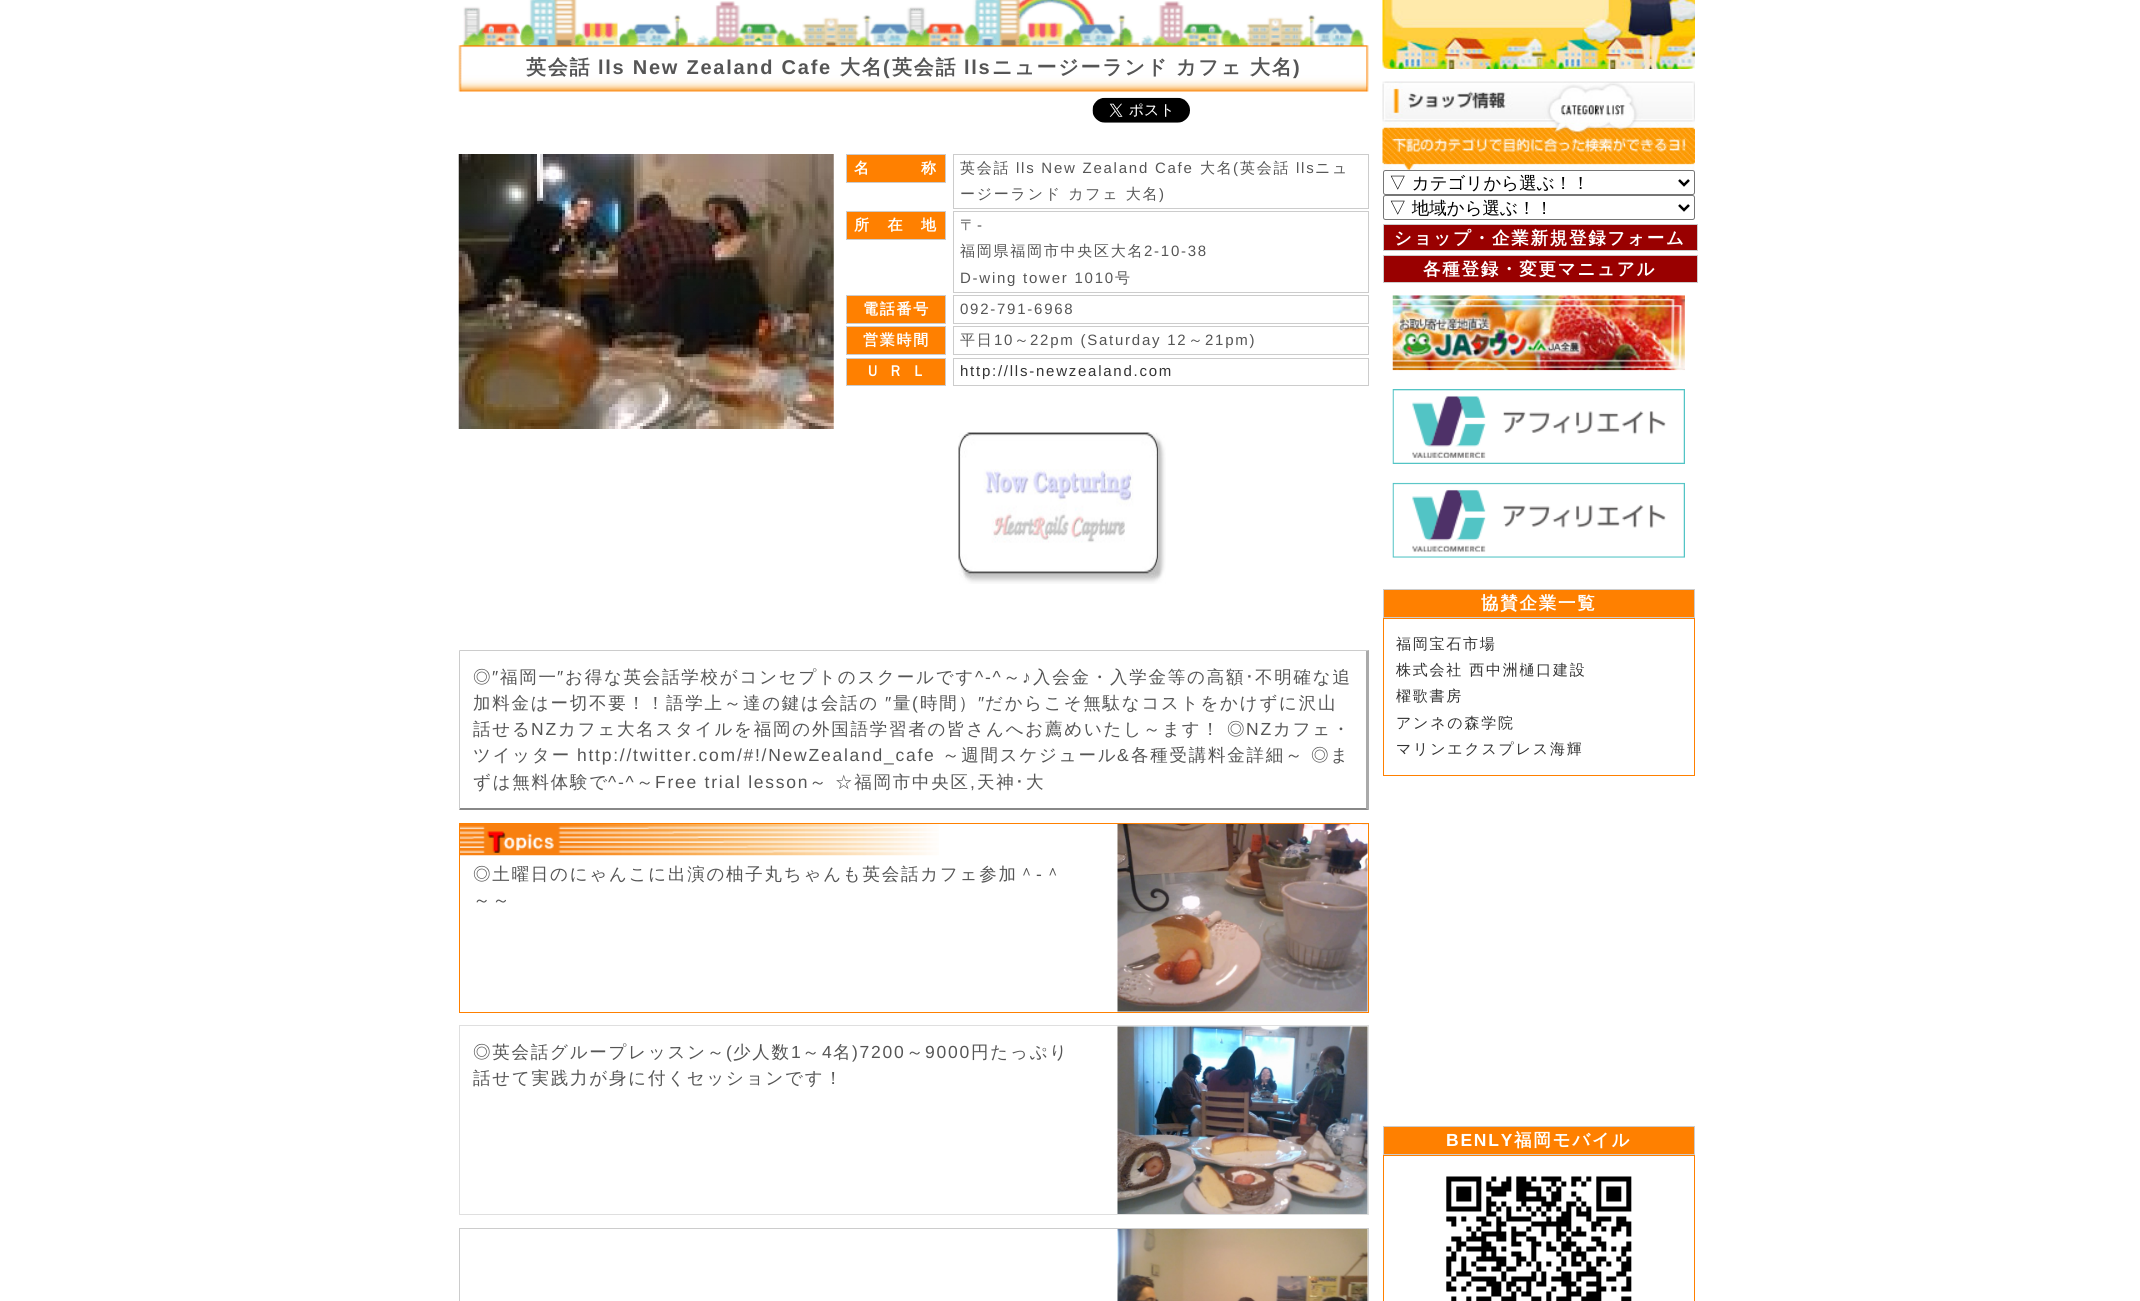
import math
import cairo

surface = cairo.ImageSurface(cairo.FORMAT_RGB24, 2140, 1301)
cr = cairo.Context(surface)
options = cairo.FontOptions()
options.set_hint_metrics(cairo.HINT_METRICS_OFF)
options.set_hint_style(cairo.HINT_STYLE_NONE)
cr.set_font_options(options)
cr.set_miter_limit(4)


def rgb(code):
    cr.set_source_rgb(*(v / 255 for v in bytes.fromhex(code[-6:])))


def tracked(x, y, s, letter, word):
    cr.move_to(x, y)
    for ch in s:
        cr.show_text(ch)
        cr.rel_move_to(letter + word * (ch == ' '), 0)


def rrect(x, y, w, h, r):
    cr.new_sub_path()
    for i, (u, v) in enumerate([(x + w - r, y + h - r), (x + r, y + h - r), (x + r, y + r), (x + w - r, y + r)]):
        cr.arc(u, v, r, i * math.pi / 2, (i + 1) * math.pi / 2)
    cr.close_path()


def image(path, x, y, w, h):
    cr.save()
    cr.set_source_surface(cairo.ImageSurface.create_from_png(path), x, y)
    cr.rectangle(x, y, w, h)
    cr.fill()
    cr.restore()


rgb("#ffffff")
cr.paint()
image("img/1.png", 458, 0, 911, 92)
image("img/2.png", 1092, 97, 98, 26)
image("img/3.png", 458, 154, 376, 275)
rgb("#ff8000")
cr.rectangle(846.5, 154.5, 99, 28)
cr.fill_preserve()
rgb("#cccccc")
cr.set_line_width(1)
cr.stroke()
cr.rectangle(953.5, 154.5, 415, 54)
cr.stroke()
rgb("#ff8000")
cr.rectangle(846.5, 211.5, 99, 28)
cr.fill_preserve()
rgb("#cccccc")
cr.stroke()
cr.rectangle(953.5, 211.5, 415, 81)
cr.stroke()
rgb("#ff8000")
cr.rectangle(846.5, 295.5, 99, 28)
cr.fill_preserve()
rgb("#cccccc")
cr.stroke()
cr.rectangle(953.5, 295.5, 415, 28)
cr.stroke()
rgb("#ff8000")
cr.rectangle(846.5, 326.5, 99, 28)
cr.fill_preserve()
rgb("#cccccc")
cr.stroke()
cr.rectangle(953.5, 326.5, 415, 28)
cr.stroke()
rgb("#ff8000")
cr.rectangle(846.5, 358.5, 99, 27)
cr.fill_preserve()
rgb("#cccccc")
cr.stroke()
cr.rectangle(953.5, 358.5, 415, 27)
cr.stroke()
image("img/4.png", 958, 432, 208, 152)
image("img/5.png", 958, 432, 192, 129)
cr.new_path()
cr.move_to(459, 650)
cr.line_to(1369, 650)
cr.line_to(1366, 651)
cr.line_to(460, 651)
cr.close_path()
cr.fill()
rgb("#aaaaaa")
cr.new_path()
cr.move_to(1369, 650)
cr.line_to(1369, 810)
cr.line_to(1366, 808)
cr.line_to(1366, 651)
cr.close_path()
cr.fill()
rgb("#888888")
cr.new_path()
cr.move_to(1369, 810)
cr.line_to(459, 810)
cr.line_to(460, 808)
cr.line_to(1366, 808)
cr.close_path()
cr.fill()
rgb("#cccccc")
cr.new_path()
cr.move_to(459, 810)
cr.line_to(459, 650)
cr.line_to(460, 651)
cr.line_to(460, 808)
cr.close_path()
cr.fill()
image("img/6.png", 460, 824, 479, 32)
cr.rectangle(459.5, 823.5, 909, 189)
rgb("#ff8000")
cr.stroke()
image("img/7.png", 1117, 824, 251, 188)
cr.rectangle(459.5, 1025.5, 909, 189)
rgb("#dfdfdf")
cr.stroke()
image("img/8.png", 1117, 1026, 251, 188)
cr.rectangle(459.5, 1228.5, 909, 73)
rgb("#cccccc")
cr.stroke()
image("img/9.png", 1117, 1229, 251, 72)
image("img/10.png", 1382, 0, 313, 69)
image("img/11.png", 1382, 81, 313, 90)
rgb("#ffffff")
rrect(1383.5, 170.5, 311, 24, 2)
cr.fill_preserve()
rgb("#767676")
cr.stroke()
cr.new_path()
cr.move_to(1679, 180)
cr.line_to(1684, 185)
cr.line_to(1689, 180)
rgb("#000000")
cr.set_line_width(2.5)
cr.stroke()
rrect(1383.5, 195.5, 311, 24, 2)
rgb("#767676")
cr.set_line_width(1)
cr.stroke()
cr.new_path()
cr.move_to(1679, 205)
cr.line_to(1684, 210)
cr.line_to(1689, 205)
rgb("#000000")
cr.set_line_width(2.5)
cr.stroke()
rgb("#990000")
cr.rectangle(1383.5, 224.5, 314, 26)
cr.fill_preserve()
rgb("#cccccc")
cr.set_line_width(1)
cr.stroke()
rgb("#990000")
cr.rectangle(1383.5, 255.5, 314, 27)
cr.fill_preserve()
rgb("#cccccc")
cr.stroke()
image("img/12.png", 1392, 295, 293, 76)
image("img/13.png", 1392, 389, 293, 75)
image("img/14.png", 1392, 482, 293, 76)
rgb("#ff8000")
cr.rectangle(1383.5, 589.5, 311, 28)
cr.fill_preserve()
rgb("#cccccc")
cr.stroke()
cr.rectangle(1383.5, 618.5, 311, 157)
rgb("#ff8000")
cr.stroke()
cr.rectangle(1383.5, 1126.5, 311, 28)
cr.fill_preserve()
rgb("#cccccc")
cr.stroke()
cr.rectangle(1383.5, 1155.5, 311, 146)
rgb("#ff8000")
cr.stroke()
image("img/15.png", 1446, 1176, 186, 125)
cr.select_font_face("WenQuanYi Zen Hei", cairo.FONT_SLANT_NORMAL, cairo.FONT_WEIGHT_BOLD)
cr.set_font_size(20)
rgb("#555555")
tracked(526, 74, "英会話", 1.75, 0)
cr.select_font_face("Liberation Sans", cairo.FONT_SLANT_NORMAL, cairo.FONT_WEIGHT_BOLD)
tracked(598, 74, "lls New Zealand Cafe", 1.75, 0)
cr.select_font_face("WenQuanYi Zen Hei", cairo.FONT_SLANT_NORMAL, cairo.FONT_WEIGHT_BOLD)
tracked(840, 74, "大名", 1.75, 0)
cr.select_font_face("Liberation Sans", cairo.FONT_SLANT_NORMAL, cairo.FONT_WEIGHT_BOLD)
tracked(883, 74, "(", 1.75, 0)
cr.select_font_face("WenQuanYi Zen Hei", cairo.FONT_SLANT_NORMAL, cairo.FONT_WEIGHT_BOLD)
tracked(892, 74, "英会話", 1.75, 0)
cr.select_font_face("Liberation Sans", cairo.FONT_SLANT_NORMAL, cairo.FONT_WEIGHT_BOLD)
tracked(964, 74, "lls", 1.75, 0)
cr.select_font_face("WenQuanYi Zen Hei", cairo.FONT_SLANT_NORMAL, cairo.FONT_WEIGHT_BOLD)
for x, y, s in [
    (992, 74, "ニュージーランド"),
    (1176, 74, "カフェ"),
    (1250, 74, "大名"),
]:
    tracked(x, y, s, 1.75, 0)
cr.select_font_face("Liberation Sans", cairo.FONT_SLANT_NORMAL, cairo.FONT_WEIGHT_BOLD)
tracked(1293, 74, ")", 1.75, 0)
cr.select_font_face("WenQuanYi Zen Hei", cairo.FONT_SLANT_NORMAL, cairo.FONT_WEIGHT_BOLD)
cr.set_font_size(15)
rgb("#ffffff")
tracked(854, 173, "名　　　称", 1.75, 0)
cr.select_font_face("WenQuanYi Zen Hei Medium")
rgb("#555555")
tracked(960, 173, "英会話", 1.75, 0)
cr.select_font_face("Liberation Sans")
tracked(1016, 173, "lls New Zealand Cafe", 1.75, 0)
cr.select_font_face("WenQuanYi Zen Hei Medium")
tracked(1200, 173, "大名", 1.75, 0)
cr.select_font_face("Liberation Sans")
tracked(1233, 173, "(", 1.75, 0)
cr.select_font_face("WenQuanYi Zen Hei Medium")
tracked(1240, 173, "英会話", 1.75, 0)
cr.select_font_face("Liberation Sans")
tracked(1296, 173, "lls", 1.75, 0)
cr.select_font_face("WenQuanYi Zen Hei Medium")
tracked(1315, 173, "ニュ", 1.75, 0)
tracked(960, 199, "ージーランド カフェ 大名", 1.75, 0)
cr.select_font_face("Liberation Sans")
tracked(1159, 199, ")", 1.75, 0)
cr.select_font_face("WenQuanYi Zen Hei", cairo.FONT_SLANT_NORMAL, cairo.FONT_WEIGHT_BOLD)
rgb("#ffffff")
tracked(854, 230, "所　在　地", 1.75, 0)
cr.select_font_face("WenQuanYi Zen Hei Medium")
rgb("#555555")
tracked(960, 230, "〒", 1.75, 0)
cr.select_font_face("Liberation Sans")
tracked(977, 230, "-", 1.75, 0)
cr.select_font_face("WenQuanYi Zen Hei Medium")
tracked(960, 256, "福岡県福岡市中央区大名", 1.75, 0)
cr.select_font_face("Liberation Sans")
tracked(1144, 256, "2-10-38", 1.75, 0)
tracked(960, 283, "D-wing tower 1010", 1.75, 0)
cr.select_font_face("WenQuanYi Zen Hei Medium")
tracked(1115, 283, "号", 1.75, 0)
cr.select_font_face("WenQuanYi Zen Hei", cairo.FONT_SLANT_NORMAL, cairo.FONT_WEIGHT_BOLD)
rgb("#ffffff")
tracked(863, 314, "電話番号", 1.75, 0)
cr.select_font_face("Liberation Sans")
rgb("#555555")
tracked(960, 314, "092-791-6968", 1.75, 0)
cr.select_font_face("WenQuanYi Zen Hei", cairo.FONT_SLANT_NORMAL, cairo.FONT_WEIGHT_BOLD)
rgb("#ffffff")
tracked(863, 345, "営業時間", 1.75, 0)
cr.select_font_face("WenQuanYi Zen Hei Medium")
rgb("#555555")
tracked(960, 345, "平日", 1.75, 0)
cr.select_font_face("Liberation Sans")
tracked(994, 345, "10", 1.75, 0)
cr.select_font_face("WenQuanYi Zen Hei Medium")
tracked(1014, 345, "～", 1.75, 0)
cr.select_font_face("Liberation Sans")
tracked(1030, 345, "22pm (Saturday 12", 1.75, 0)
cr.select_font_face("WenQuanYi Zen Hei Medium")
tracked(1188, 345, "～", 1.75, 0)
cr.select_font_face("Liberation Sans")
tracked(1205, 345, "21pm)", 1.75, 0)
cr.select_font_face("WenQuanYi Zen Hei", cairo.FONT_SLANT_NORMAL, cairo.FONT_WEIGHT_BOLD)
rgb("#ffffff")
tracked(865, 376, "Ｕ Ｒ Ｌ", 1.75, 0)
cr.select_font_face("Liberation Sans")
rgb("#333333")
tracked(960, 376, "http://lls-newzealand.com", 1.75, 0)
cr.select_font_face("WenQuanYi Zen Hei Medium")
cr.set_font_size(17.5)
rgb("#555555")
tracked(473, 683, "◎", 1.75, 0)
cr.select_font_face("Liberation Sans")
tracked(492, 683, "″", 1.75, 0)
cr.select_font_face("WenQuanYi Zen Hei Medium")
tracked(500, 683, "福岡一", 1.75, 0)
cr.select_font_face("Liberation Sans")
tracked(557, 683, "″", 1.75, 0)
cr.select_font_face("WenQuanYi Zen Hei Medium")
tracked(565, 683, "お得な英会話学校がコンセプトのスクールです", 1.75, 0)
cr.select_font_face("Liberation Sans")
tracked(975, 683, "^-^", 1.75, 0)
cr.select_font_face("WenQuanYi Zen Hei Medium")
tracked(1003, 683, "～", 1.75, 0)
cr.select_font_face("Liberation Sans")
tracked(1022, 683, "♪", 1.75, 0)
cr.select_font_face("WenQuanYi Zen Hei Medium")
tracked(1033, 683, "入会金・入学金等の高額", 1.75, 0)
cr.select_font_face("IPAPGothic")
tracked(1245, 683, "･", 1.75, 0)
cr.select_font_face("WenQuanYi Zen Hei Medium")
tracked(1255, 683, "不明確な追", 1.75, 0)
tracked(473, 709, "加料金はー切不要！！語学上～達の鍵は会話の", 1.75, 0)
cr.select_font_face("Liberation Sans")
tracked(885, 709, "″", 1.75, 0)
cr.select_font_face("WenQuanYi Zen Hei Medium")
tracked(893, 709, "量", 1.75, 0)
cr.select_font_face("Liberation Sans")
tracked(912, 709, "(", 1.75, 0)
cr.select_font_face("WenQuanYi Zen Hei Medium")
tracked(920, 709, "時間）", 1.75, 0)
cr.select_font_face("Liberation Sans")
tracked(978, 709, "″", 1.75, 0)
cr.select_font_face("WenQuanYi Zen Hei Medium")
tracked(985, 709, "だからこそ無駄なコストをかけずに沢山", 1.75, 0)
tracked(473, 735, "話せる", 1.75, 0)
cr.select_font_face("Liberation Sans")
tracked(531, 735, "NZ", 1.75, 0)
cr.select_font_face("WenQuanYi Zen Hei Medium")
tracked(558, 735, "カフェ大名スタイルを福岡の外国語学習者の皆さんへお薦めいたし～ます！", 1.75, 0)
tracked(1227, 735, "◎", 1.75, 0)
cr.select_font_face("Liberation Sans")
tracked(1246, 735, "NZ", 1.75, 0)
cr.select_font_face("WenQuanYi Zen Hei Medium")
tracked(1273, 735, "カフェ・", 1.75, 0)
tracked(473, 761, "ツイッター", 1.75, 0)
cr.select_font_face("Liberation Sans")
tracked(577, 761, "http://twitter.com/#!/NewZealand_cafe", 1.75, 0)
cr.select_font_face("WenQuanYi Zen Hei Medium")
tracked(942, 761, "～週間スケジュール", 1.75, 0)
cr.select_font_face("Liberation Sans")
tracked(1117, 761, "&", 1.75, 0)
cr.select_font_face("WenQuanYi Zen Hei Medium")
for x, y, s in [
    (1131, 761, "各種受講料金詳細～"),
    (1311, 761, "◎ま"),
    (473, 788, "ずは無料体験で"),
]:
    tracked(x, y, s, 1.75, 0)
cr.select_font_face("Liberation Sans")
tracked(608, 788, "^-^", 1.75, 0)
cr.select_font_face("WenQuanYi Zen Hei Medium")
tracked(636, 788, "～", 1.75, 0)
cr.select_font_face("Liberation Sans")
tracked(655, 788, "Free trial lesson", 1.75, 0)
cr.select_font_face("WenQuanYi Zen Hei Medium")
for x, y, s in [
    (809, 788, "～"),
    (835, 788, "☆福岡市中央区"),
    (977, 788, "天神"),
]:
    tracked(x, y, s, 1.75, 0)
cr.select_font_face("IPAPGothic")
tracked(1015, 788, "･", 1.75, 0)
cr.select_font_face("WenQuanYi Zen Hei Medium")
tracked(1026, 788, "大", 1.75, 0)
cr.select_font_face("Liberation Sans")
tracked(970, 788, ",", 1.75, 0)
cr.select_font_face("WenQuanYi Zen Hei Medium")
tracked(473, 880, "◎土曜日のにゃんこに出演の柚子丸ちゃんも英会話カフェ参加＾", 1.75, 0)
cr.select_font_face("Liberation Sans")
tracked(1036, 880, "-", 1.75, 0)
cr.select_font_face("WenQuanYi Zen Hei Medium")
for x, y, s in [
    (1044, 880, "＾"),
    (473, 906, "～～"),
    (473, 1058, "◎英会話グループレッスン～"),
]:
    tracked(x, y, s, 1.75, 0)
cr.select_font_face("Liberation Sans")
tracked(726, 1058, "(", 1.75, 0)
cr.select_font_face("WenQuanYi Zen Hei Medium")
tracked(733, 1058, "少人数", 1.75, 0)
cr.select_font_face("Liberation Sans")
tracked(791, 1058, "1", 1.75, 0)
cr.select_font_face("WenQuanYi Zen Hei Medium")
tracked(802, 1058, "～", 1.75, 0)
cr.select_font_face("Liberation Sans")
tracked(822, 1058, "4", 1.75, 0)
cr.select_font_face("WenQuanYi Zen Hei Medium")
tracked(833, 1058, "名", 1.75, 0)
cr.select_font_face("Liberation Sans")
tracked(852, 1058, ")7200", 1.75, 0)
cr.select_font_face("WenQuanYi Zen Hei Medium")
tracked(906, 1058, "～", 1.75, 0)
cr.select_font_face("Liberation Sans")
tracked(925, 1058, "9000", 1.75, 0)
cr.select_font_face("WenQuanYi Zen Hei Medium")
tracked(971, 1058, "円たっぷり", 1.75, 0)
tracked(473, 1084, "話せて実践力が身に付くセッションです！", 1.75, 0)
rgb("#000000")
cr.move_to(1389, 189)
cr.show_text("▽ カテゴリから選ぶ！！")
cr.move_to(1389, 214)
cr.show_text("▽ 地域から選ぶ！！")
cr.select_font_face("WenQuanYi Zen Hei", cairo.FONT_SLANT_NORMAL, cairo.FONT_WEIGHT_BOLD)
rgb("#ffffff")
for x, y, s in [
    (1394, 244, "ショップ・企業新規登録フォーム"),
    (1423, 275, "各種登録・変更マニュアル"),
    (1481, 609, "協賛企業一覧"),
]:
    tracked(x, y, s, 1.75, 0)
cr.select_font_face("WenQuanYi Zen Hei Medium")
cr.set_font_size(15)
rgb("#333333")
for x, y, s in [
    (1396, 649, "福岡宝石市場"),
    (1396, 675, "株式会社 西中洲樋口建設"),
    (1396, 701, "櫂歌書房"),
    (1396, 728, "アンネの森学院"),
    (1396, 754, "マリンエクスプレス海輝"),
]:
    tracked(x, y, s, 1.75, 0)
cr.select_font_face("Liberation Sans", cairo.FONT_SLANT_NORMAL, cairo.FONT_WEIGHT_BOLD)
cr.set_font_size(17.5)
rgb("#ffffff")
tracked(1446, 1146, "BENLY", 1.75, 0)
cr.select_font_face("WenQuanYi Zen Hei", cairo.FONT_SLANT_NORMAL, cairo.FONT_WEIGHT_BOLD)
tracked(1514, 1146, "福岡モバイル", 1.75, 0)
surface.write_to_png("page.png")
